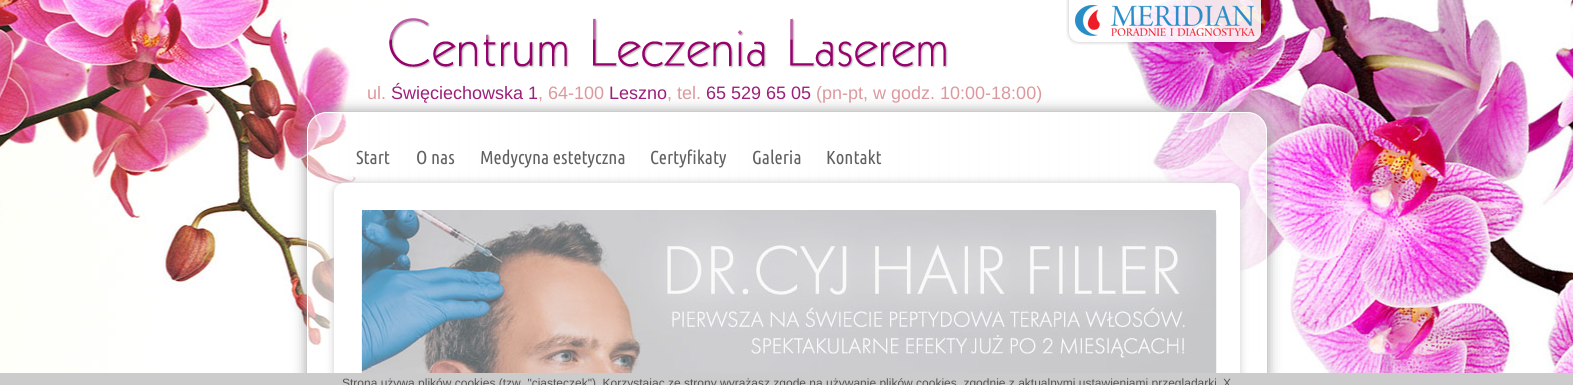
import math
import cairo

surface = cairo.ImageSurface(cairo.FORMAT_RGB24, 1573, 385)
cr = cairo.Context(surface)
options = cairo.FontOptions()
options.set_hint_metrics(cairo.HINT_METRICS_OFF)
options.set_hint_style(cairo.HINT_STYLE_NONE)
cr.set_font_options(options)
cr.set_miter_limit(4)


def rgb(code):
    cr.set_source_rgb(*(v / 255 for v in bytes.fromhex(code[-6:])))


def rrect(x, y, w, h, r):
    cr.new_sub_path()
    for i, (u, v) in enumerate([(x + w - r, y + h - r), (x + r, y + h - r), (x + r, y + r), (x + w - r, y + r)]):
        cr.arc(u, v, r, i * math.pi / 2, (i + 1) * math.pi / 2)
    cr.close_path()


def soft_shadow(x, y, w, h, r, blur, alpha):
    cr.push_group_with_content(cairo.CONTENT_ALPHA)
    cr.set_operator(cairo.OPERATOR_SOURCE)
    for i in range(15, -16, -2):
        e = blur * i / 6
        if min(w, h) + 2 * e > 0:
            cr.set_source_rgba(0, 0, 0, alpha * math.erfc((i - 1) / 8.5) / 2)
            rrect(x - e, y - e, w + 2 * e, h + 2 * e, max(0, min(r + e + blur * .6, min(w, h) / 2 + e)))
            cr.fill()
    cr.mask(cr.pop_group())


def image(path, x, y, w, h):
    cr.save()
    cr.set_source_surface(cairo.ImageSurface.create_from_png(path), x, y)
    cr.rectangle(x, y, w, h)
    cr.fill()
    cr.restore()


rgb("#ffffff")
cr.paint()
image("img/1.png", 0, 0, 1573, 373)
image("img/2.png", 389, 18, 559, 51)
image("img/3.png", 1066, 0, 198, 45)
cr.save()
cr.set_fill_rule(cairo.FILL_RULE_EVEN_ODD)
cr.new_path()
cr.move_to(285, 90)
cr.line_to(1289, 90)
cr.line_to(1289, 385)
cr.line_to(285, 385)
cr.close_path()
cr.move_to(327, 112)
cr.line_to(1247, 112)
cr.curve_to(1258, 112, 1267, 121, 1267, 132)
cr.line_to(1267, 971)
cr.curve_to(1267, 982, 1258, 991, 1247, 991)
cr.line_to(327, 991)
cr.curve_to(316, 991, 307, 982, 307, 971)
cr.line_to(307, 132)
cr.curve_to(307, 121, 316, 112, 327, 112)
cr.close_path()
cr.clip()
rgb("#999999")
soft_shadow(307, 112, 960, 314, 20, 7, 1)
cr.restore()
image("img/4.png", 307, 112, 960, 240)
rrect(307.5, 112.5, 959, 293, 19.5)
rgb("#ffffff")
cr.set_line_width(1)
cr.stroke()
rgb("#cccccc")
soft_shadow(334, 183, 906, 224, 10, 4, 1)
rgb("#ffffff")
rrect(334.5, 183.5, 905, 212, 9.5)
cr.fill_preserve()
cr.stroke()
rgb("#f2f2f2")
rrect(361, 210, 856, 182, 7)
cr.fill()
rgb("#cccccc")
cr.rectangle(0, 373, 1573, 12)
cr.fill()
image("img/5.png", 362, 210, 854, 163)
cr.select_font_face("Liberation Sans")
cr.set_font_size(18)
rgb("#db999d")
cr.move_to(367, 99)
cr.show_text("ul.")
rgb("#9c1f7a")
cr.move_to(391, 99)
cr.show_text("Święciechowska 1")
rgb("#db999d")
cr.move_to(538, 99)
cr.show_text(", 64-100")
rgb("#9c1f7a")
cr.move_to(609, 99)
cr.show_text("Leszno")
rgb("#db999d")
cr.move_to(667, 99)
cr.show_text(", tel.")
rgb("#9c1f7a")
cr.move_to(706, 99)
cr.show_text("65 529 65 05")
rgb("#db999d")
cr.move_to(816, 99)
cr.show_text("(pn-pt, w godz. 10:00-18:00)")
cr.set_font_size(12)
rgb("#555555")
cr.move_to(342, 387)
cr.show_text("Strona używa plików cookies (tzw. \"ciasteczek\"). Korzystając ze strony wyrażasz zgodę na używanie plików cookies, zgodnie z aktualnymi ustawieniami przeglądarki")
cr.move_to(1223, 387)
cr.show_text("X")
cr.select_font_face("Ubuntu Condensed")
cr.set_font_size(18.75)
rgb("#616161")
for x, y, s in [
    (356, 164, "Start"),
    (416, 164, "O nas"),
    (480, 164, "Medycyna estetyczna"),
    (650, 164, "Certyfikaty"),
    (752, 164, "Galeria"),
    (826, 164, "Kontakt"),
]:
    cr.move_to(x, y)
    cr.show_text(s)
surface.write_to_png("page.png")
